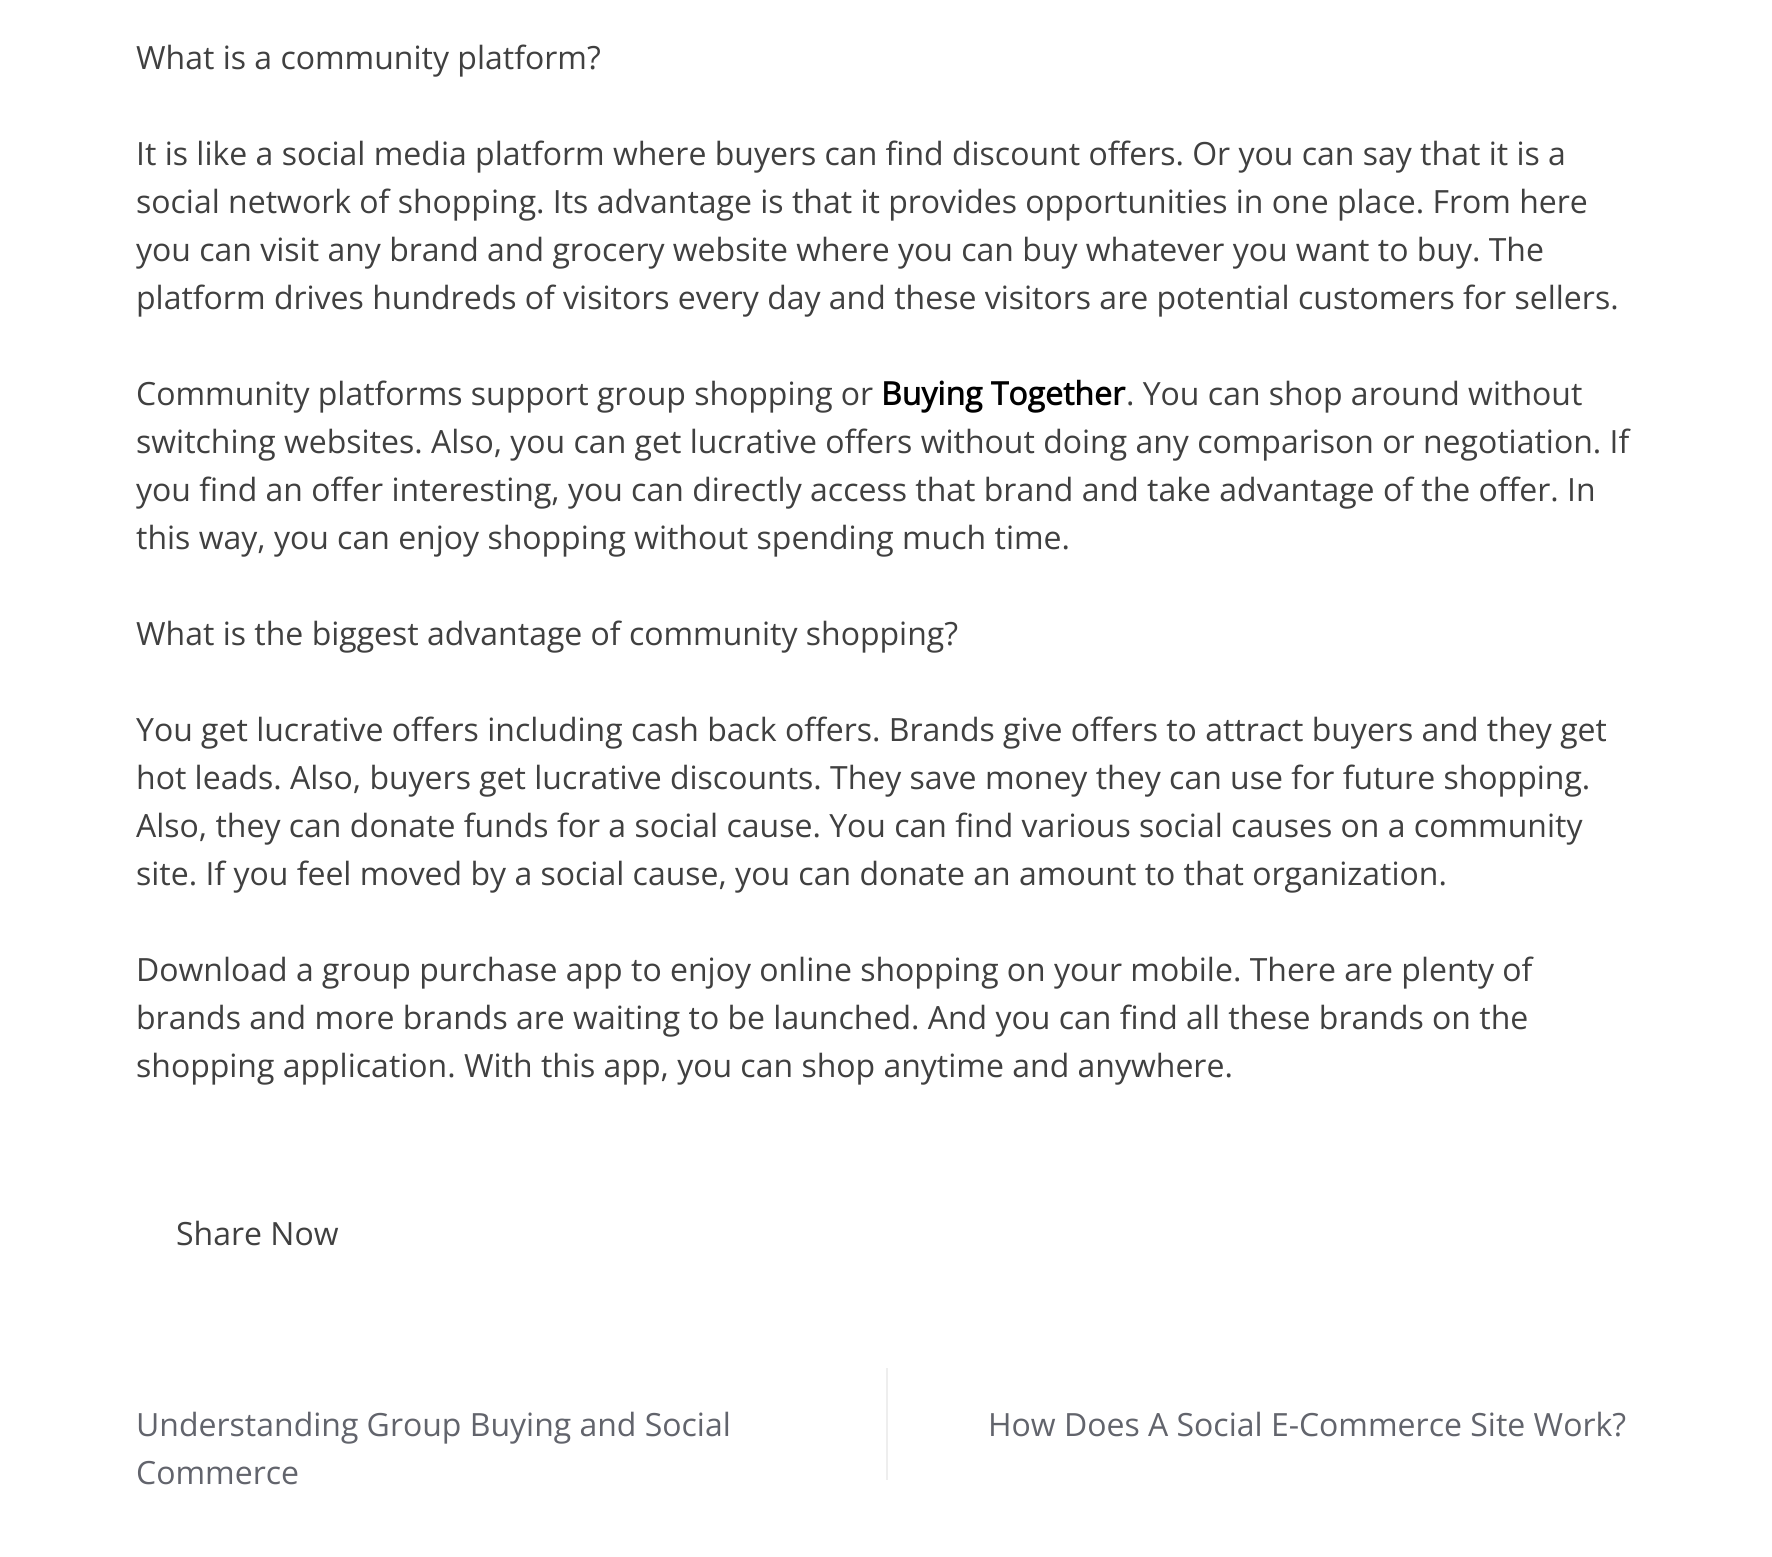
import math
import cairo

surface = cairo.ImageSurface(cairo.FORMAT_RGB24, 1772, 1557)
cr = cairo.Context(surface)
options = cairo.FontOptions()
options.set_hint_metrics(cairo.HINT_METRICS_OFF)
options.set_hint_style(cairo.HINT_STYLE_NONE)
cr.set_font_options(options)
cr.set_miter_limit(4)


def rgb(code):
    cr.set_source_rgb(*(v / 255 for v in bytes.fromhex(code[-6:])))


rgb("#ffffff")
cr.paint()
rgb("#eeeeee")
cr.rectangle(886, 1368, 2, 112)
cr.fill()
cr.select_font_face("Open Sans")
cr.set_font_size(32)
rgb("#404040")
for x, y, s in [
    (136, 69, "What is a community platform?"),
    (136, 165, "It is like a social media platform where buyers can find discount offers. Or you can say that it is a"),
    (136, 213, "social network of shopping. Its advantage is that it provides opportunities in one place. From here"),
    (136, 261, "you can visit any brand and grocery website where you can buy whatever you want to buy. The"),
    (136, 309, "platform drives hundreds of visitors every day and these visitors are potential customers for sellers."),
    (136, 405, "Community platforms support group shopping or"),
]:
    cr.move_to(x, y)
    cr.show_text(s)
cr.select_font_face("Open Sans", cairo.FONT_SLANT_NORMAL, cairo.FONT_WEIGHT_BOLD)
rgb("#000000")
cr.move_to(881, 405)
cr.show_text("Buying Together")
cr.select_font_face("Open Sans")
rgb("#404040")
for x, y, s in [
    (1126, 405, ". You can shop around without"),
    (136, 453, "switching websites. Also, you can get lucrative offers without doing any comparison or negotiation. If"),
    (136, 501, "you find an offer interesting, you can directly access that brand and take advantage of the offer. In"),
    (136, 549, "this way, you can enjoy shopping without spending much time."),
    (136, 645, "What is the biggest advantage of community shopping?"),
    (136, 741, "You get lucrative offers including cash back offers. Brands give offers to attract buyers and they get"),
    (136, 789, "hot leads. Also, buyers get lucrative discounts. They save money they can use for future shopping."),
    (136, 837, "Also, they can donate funds for a social cause. You can find various social causes on a community"),
    (136, 885, "site. If you feel moved by a social cause, you can donate an amount to that organization."),
    (136, 981, "Download a group purchase app to enjoy online shopping on your mobile. There are plenty of"),
    (136, 1029, "brands and more brands are waiting to be launched. And you can find all these brands on the"),
    (136, 1077, "shopping application. With this app, you can shop anytime and anywhere."),
    (176, 1245, "Share Now"),
]:
    cr.move_to(x, y)
    cr.show_text(s)
rgb("#62646c")
for x, y, s in [
    (136, 1436, "Understanding Group Buying and Social"),
    (136, 1484, "Commerce"),
    (988, 1436, "How Does A Social E-Commerce Site Work?"),
]:
    cr.move_to(x, y)
    cr.show_text(s)
surface.write_to_png("page.png")
